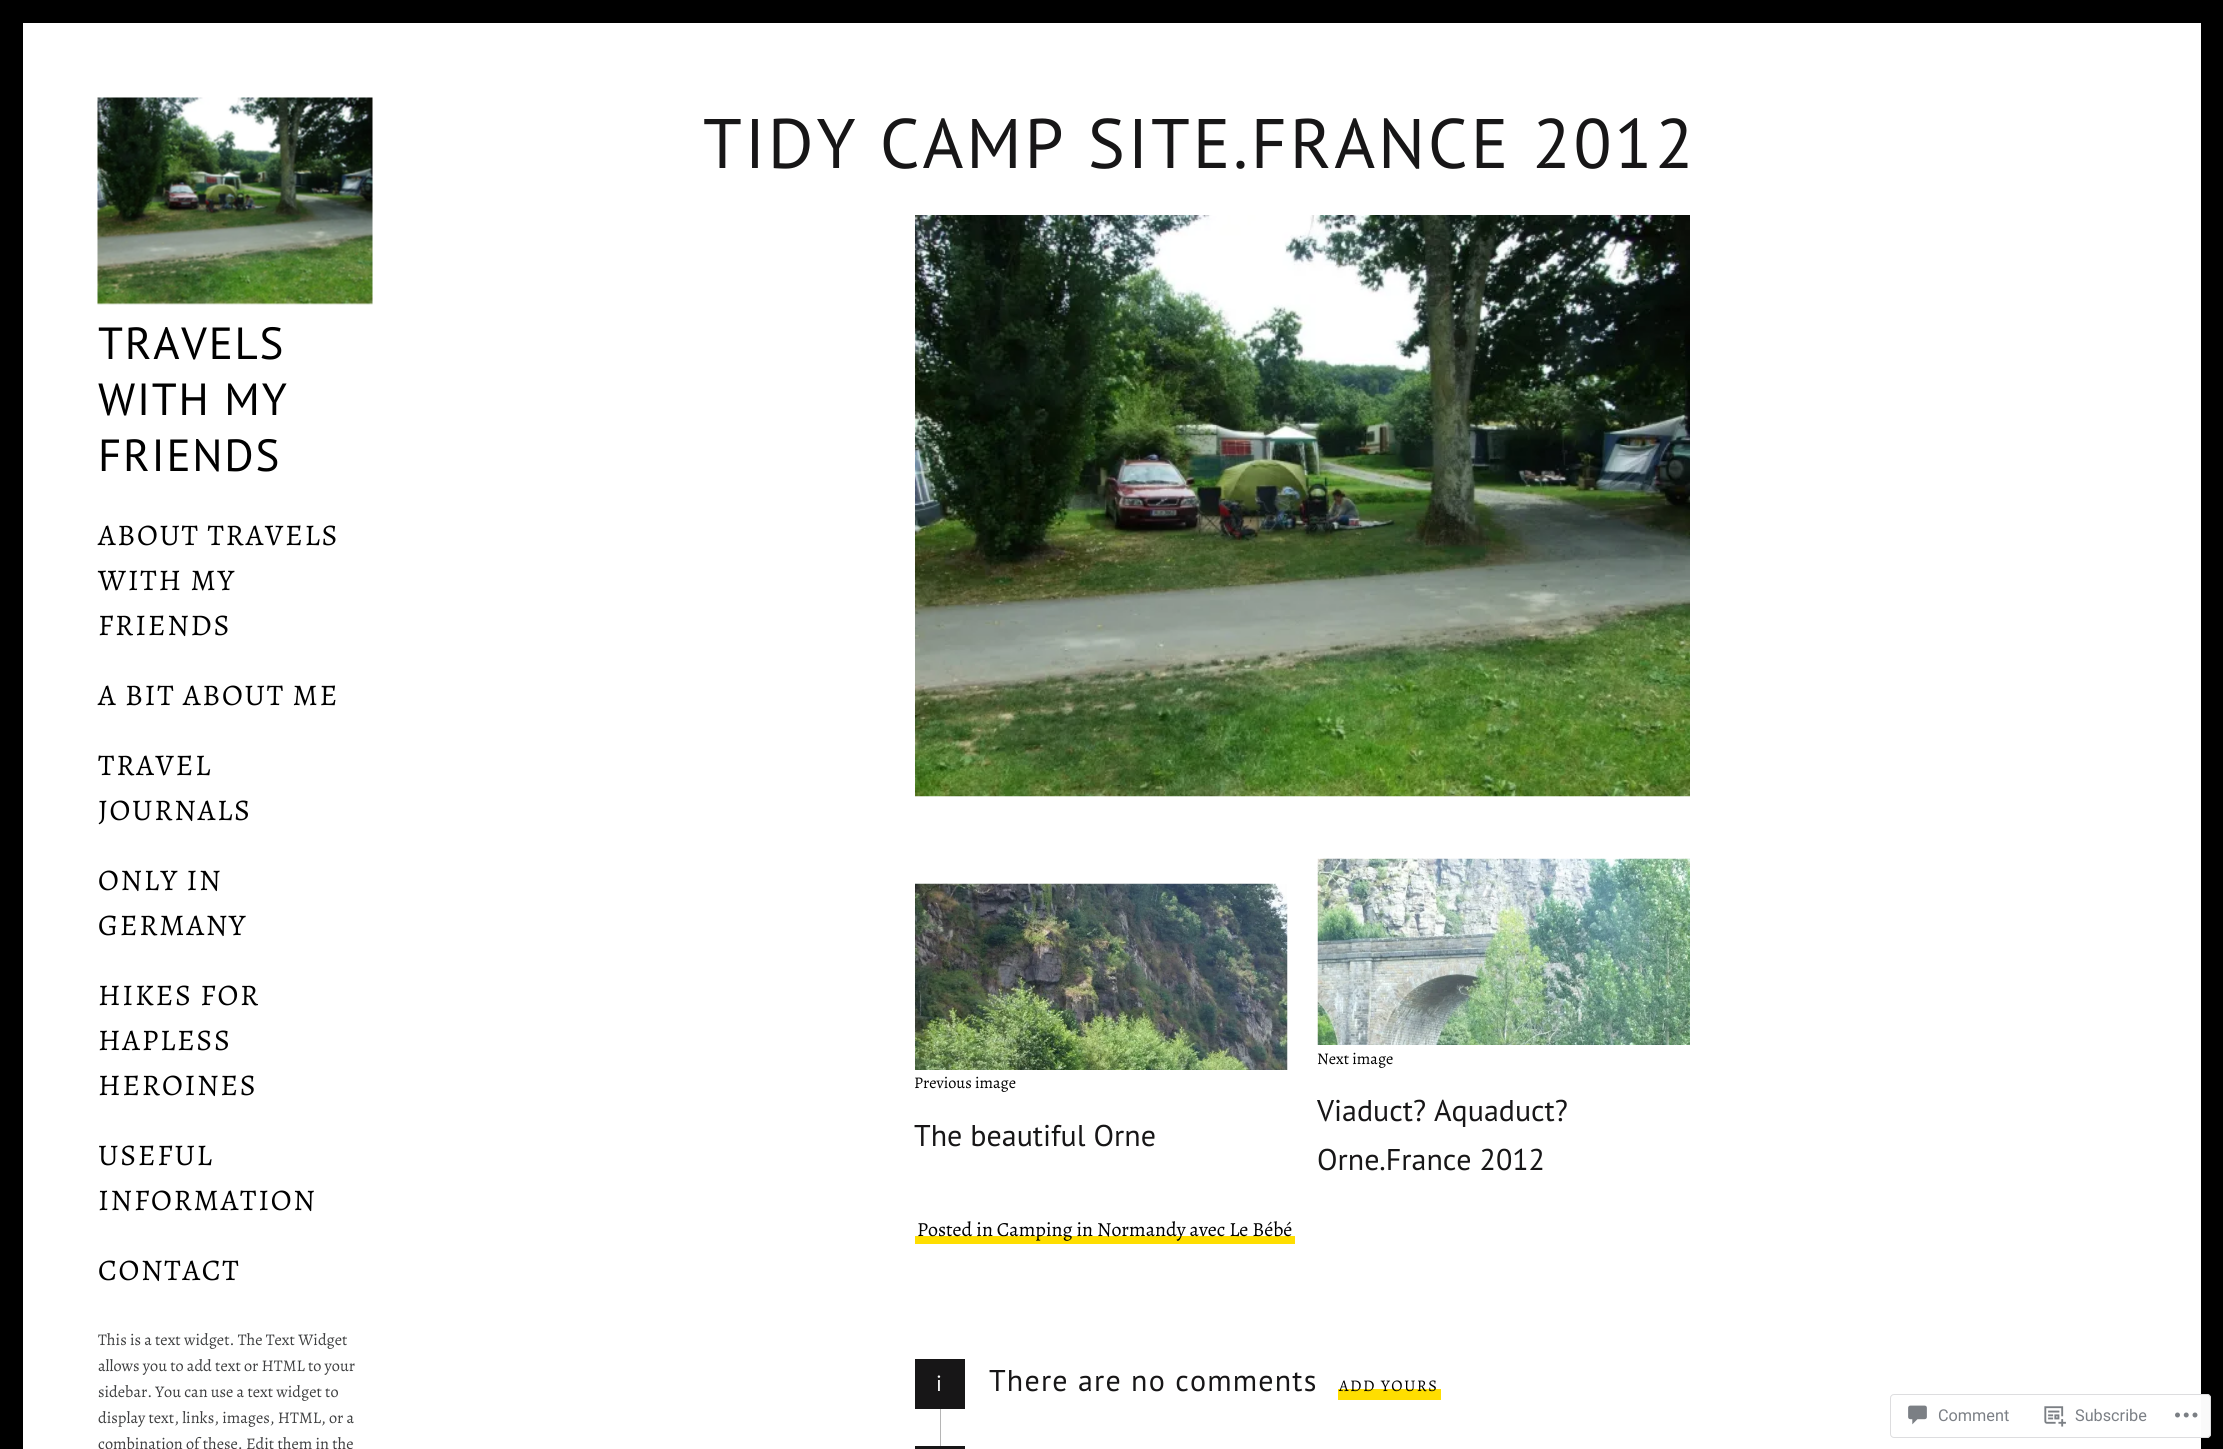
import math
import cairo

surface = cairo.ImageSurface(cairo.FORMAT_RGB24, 2223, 1449)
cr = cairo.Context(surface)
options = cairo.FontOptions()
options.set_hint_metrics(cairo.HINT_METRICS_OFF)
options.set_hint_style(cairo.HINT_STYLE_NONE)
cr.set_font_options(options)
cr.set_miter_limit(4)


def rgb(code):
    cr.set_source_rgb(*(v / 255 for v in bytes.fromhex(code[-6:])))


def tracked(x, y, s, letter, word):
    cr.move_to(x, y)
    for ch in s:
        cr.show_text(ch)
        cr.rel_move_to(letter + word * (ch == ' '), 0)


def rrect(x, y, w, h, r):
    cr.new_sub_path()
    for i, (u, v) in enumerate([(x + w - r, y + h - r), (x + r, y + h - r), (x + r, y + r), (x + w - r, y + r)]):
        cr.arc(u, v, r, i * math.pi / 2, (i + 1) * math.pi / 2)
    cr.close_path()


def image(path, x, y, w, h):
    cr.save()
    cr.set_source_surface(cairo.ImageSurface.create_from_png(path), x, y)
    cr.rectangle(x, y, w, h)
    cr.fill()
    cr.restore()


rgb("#ffffff")
cr.paint()
for x, y, w, h, color in [
    (23, 0, 2178, 23, "#000000"),
    (2201, 0, 22, 1449, "#000000"),
    (0, 0, 23, 1449, "#000000"),
]:
    rgb(color)
    cr.rectangle(x, y, w, h)
    cr.fill()
image("img/1.png", 97, 97, 276, 208)
image("img/2.png", 915, 215, 775, 582)
image("img/3.png", 915, 883, 373, 187)
image("img/4.png", 1317, 858, 373, 187)
for x, y, w, h, color in [
    (915, 1236, 380, 8, "#ffde00"),
    (915, 1359, 50, 50, "#171617"),
    (1338, 1389, 103, 11, "#ffde00"),
    (940, 1409, 1, 37, "#b5b5b5"),
    (915, 1446, 50, 3, "#171617"),
]:
    rgb(color)
    cr.rectangle(x, y, w, h)
    cr.fill()
cr.set_source_rgba(1, 1, 1, 0.98)
rrect(1890, 1394, 321, 44, 4)
cr.fill()
rrect(1890.5, 1394.5, 320, 43, 3.5)
cr.set_source_rgba(0.863, 0.863, 0.871, 0.98)
cr.set_line_width(1)
cr.stroke()
image("img/5.png", 1908, 1405, 19, 20)
image("img/6.png", 2044, 1406, 22, 21)
image("img/7.png", 2175, 1412, 23, 6)
cr.select_font_face("PT Sans")
cr.set_font_size(45)
rgb("#000000")
for x, y, s in [
    (98, 359, "TRAVELS"),
    (98, 415, "WITH MY"),
    (98, 471, "FRIENDS"),
]:
    tracked(x, y, s, 1.75, 0)
cr.select_font_face("Alegreya")
cr.set_font_size(30)
for x, y, s in [
    (98, 545, "ABOUT TRAVELS"),
    (98, 590, "WITH MY"),
    (98, 635, "FRIENDS"),
    (98, 705, "A BIT ABOUT ME"),
    (98, 775, "TRAVEL"),
    (98, 820, "JOURNALS"),
    (98, 890, "ONLY IN"),
    (98, 935, "GERMANY"),
    (98, 1005, "HIKES FOR"),
    (98, 1050, "HAPLESS"),
    (98, 1095, "HEROINES"),
    (98, 1165, "USEFUL"),
    (98, 1210, "INFORMATION"),
    (98, 1280, "CONTACT"),
]:
    tracked(x, y, s, 1.75, 0)
cr.select_font_face("PT Sans")
cr.set_font_size(70)
rgb("#171617")
tracked(703, 168, "TIDY CAMP SITE.FRANCE 2012", 2.8, 0)
cr.select_font_face("Alegreya")
cr.set_font_size(16.25)
rgb("#000000")
cr.move_to(914, 1088)
cr.show_text("Previous image")
cr.select_font_face("PT Sans")
cr.set_font_size(30)
rgb("#171617")
cr.move_to(914, 1146)
cr.show_text("The beautiful Orne")
cr.select_font_face("Alegreya")
cr.set_font_size(16.25)
rgb("#000000")
cr.move_to(1317, 1064)
cr.show_text("Next image")
cr.select_font_face("PT Sans")
cr.set_font_size(30)
rgb("#171617")
cr.move_to(1317, 1121)
cr.show_text("Viaduct? Aquaduct?")
cr.move_to(1317, 1170)
cr.show_text("Orne.France 2012")
cr.select_font_face("Alegreya")
cr.set_font_size(20)
rgb("#000000")
cr.move_to(917, 1236)
cr.show_text("Posted in Camping in Normandy avec Le Bébé")
cr.select_font_face("PT Sans")
cr.set_font_size(22)
rgb("#ffffff")
tracked(936, 1391, "i", 1.2, 0)
cr.set_font_size(30)
rgb("#171617")
tracked(989, 1391, "There are no comments", 1.2, 0)
cr.select_font_face("Alegreya")
cr.set_font_size(16.25)
rgb("#000000")
tracked(1339, 1391, "ADD YOURS", 1.6, 0)
rgb("#3e3f40")
for x, y, s in [
    (98, 1345, "This is a text widget. The Text Widget"),
    (98, 1371, "allows you to add text or HTML to your"),
    (98, 1397, "sidebar. You can use a text widget to"),
    (98, 1423, "display text, links, images, HTML, or a"),
    (98, 1449, "combination of these. Edit them in the"),
]:
    cr.move_to(x, y)
    cr.show_text(s)
cr.select_font_face("Roboto")
rgb("#7b7f85")
cr.move_to(1938, 1421)
cr.show_text("Comment")
cr.move_to(2075, 1421)
cr.show_text("Subscribe")
surface.write_to_png("page.png")
